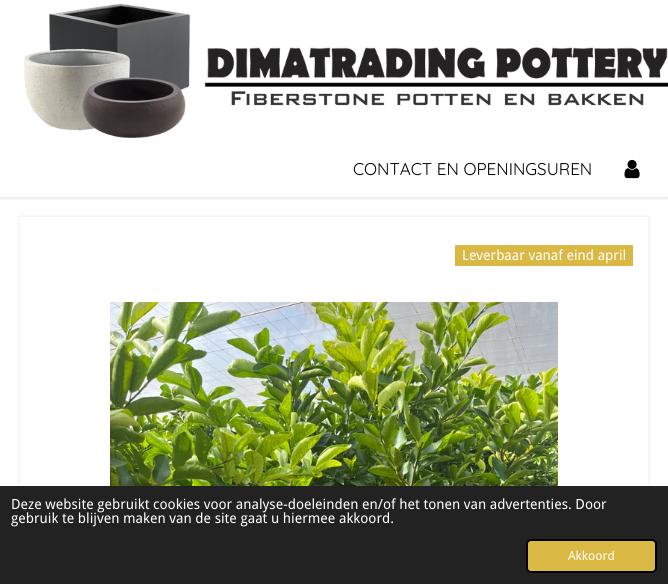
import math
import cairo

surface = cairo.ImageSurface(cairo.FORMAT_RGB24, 668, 584)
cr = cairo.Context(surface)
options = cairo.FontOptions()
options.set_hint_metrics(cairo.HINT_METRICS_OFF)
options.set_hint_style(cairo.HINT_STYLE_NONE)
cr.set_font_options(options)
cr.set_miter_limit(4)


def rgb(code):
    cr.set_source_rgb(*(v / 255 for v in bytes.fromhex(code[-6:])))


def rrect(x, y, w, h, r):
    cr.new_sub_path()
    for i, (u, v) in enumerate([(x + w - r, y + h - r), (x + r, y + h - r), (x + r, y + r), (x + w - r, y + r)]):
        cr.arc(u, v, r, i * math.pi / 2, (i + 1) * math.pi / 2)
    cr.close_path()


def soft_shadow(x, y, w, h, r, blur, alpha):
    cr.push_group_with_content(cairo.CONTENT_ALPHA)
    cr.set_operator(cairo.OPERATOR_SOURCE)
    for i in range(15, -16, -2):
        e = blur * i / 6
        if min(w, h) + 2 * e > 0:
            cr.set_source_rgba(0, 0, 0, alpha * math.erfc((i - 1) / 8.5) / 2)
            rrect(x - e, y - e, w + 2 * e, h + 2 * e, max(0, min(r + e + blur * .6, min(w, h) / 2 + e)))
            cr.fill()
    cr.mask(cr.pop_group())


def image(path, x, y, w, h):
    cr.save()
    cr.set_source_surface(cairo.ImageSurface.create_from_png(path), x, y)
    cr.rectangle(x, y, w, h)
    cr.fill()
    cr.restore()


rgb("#ffffff")
cr.paint()
cr.save()
cr.rectangle(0, 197, 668, 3)
cr.clip()
rgb("#000000")
soft_shadow(0, 0, 668, 197, 0, 2.5, 0.2)
cr.restore()
image("img/1.png", 23, 3, 645, 135)
image("img/2.png", 624, 159, 16, 20)
cr.save()
cr.set_fill_rule(cairo.FILL_RULE_EVEN_ODD)
cr.new_path()
cr.move_to(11, 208)
cr.line_to(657, 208)
cr.line_to(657, 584)
cr.line_to(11, 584)
cr.close_path()
cr.move_to(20, 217)
cr.line_to(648, 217)
cr.line_to(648, 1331)
cr.line_to(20, 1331)
cr.close_path()
cr.clip()
rgb("#000000")
soft_shadow(20, 217, 628, 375, 0, 2.5, 0.1)
cr.restore()
rgb("#dab844")
cr.rectangle(455, 245, 178, 21)
cr.fill()
image("img/3.png", 110, 302, 448, 184)
rgb("#222222")
cr.rectangle(0, 486, 668, 98)
cr.fill()
rgb("#dab844")
rrect(527, 540, 129, 32, 4)
cr.fill_preserve()
rgb("#000000")
cr.stroke()
cr.select_font_face("Quicksand")
cr.set_font_size(17)
cr.move_to(353, 175)
cr.show_text("CONTACT EN OPENINGSUREN")
cr.select_font_face("Droid Sans")
cr.set_font_size(14)
rgb("#ffffff")
for x, y, s in [
    (462, 260, "Leverbaar vanaf eind april"),
    (11, 509, "Deze website gebruikt cookies voor analyse-doeleinden en/of het tonen van advertenties. Door"),
    (11, 523, "gebruik te blijven maken van de site gaat u hiermee akkoord."),
]:
    cr.move_to(x, y)
    cr.show_text(s)
cr.set_font_size(12.5)
cr.move_to(568, 560)
cr.show_text("Akkoord")
surface.write_to_png("page.png")
